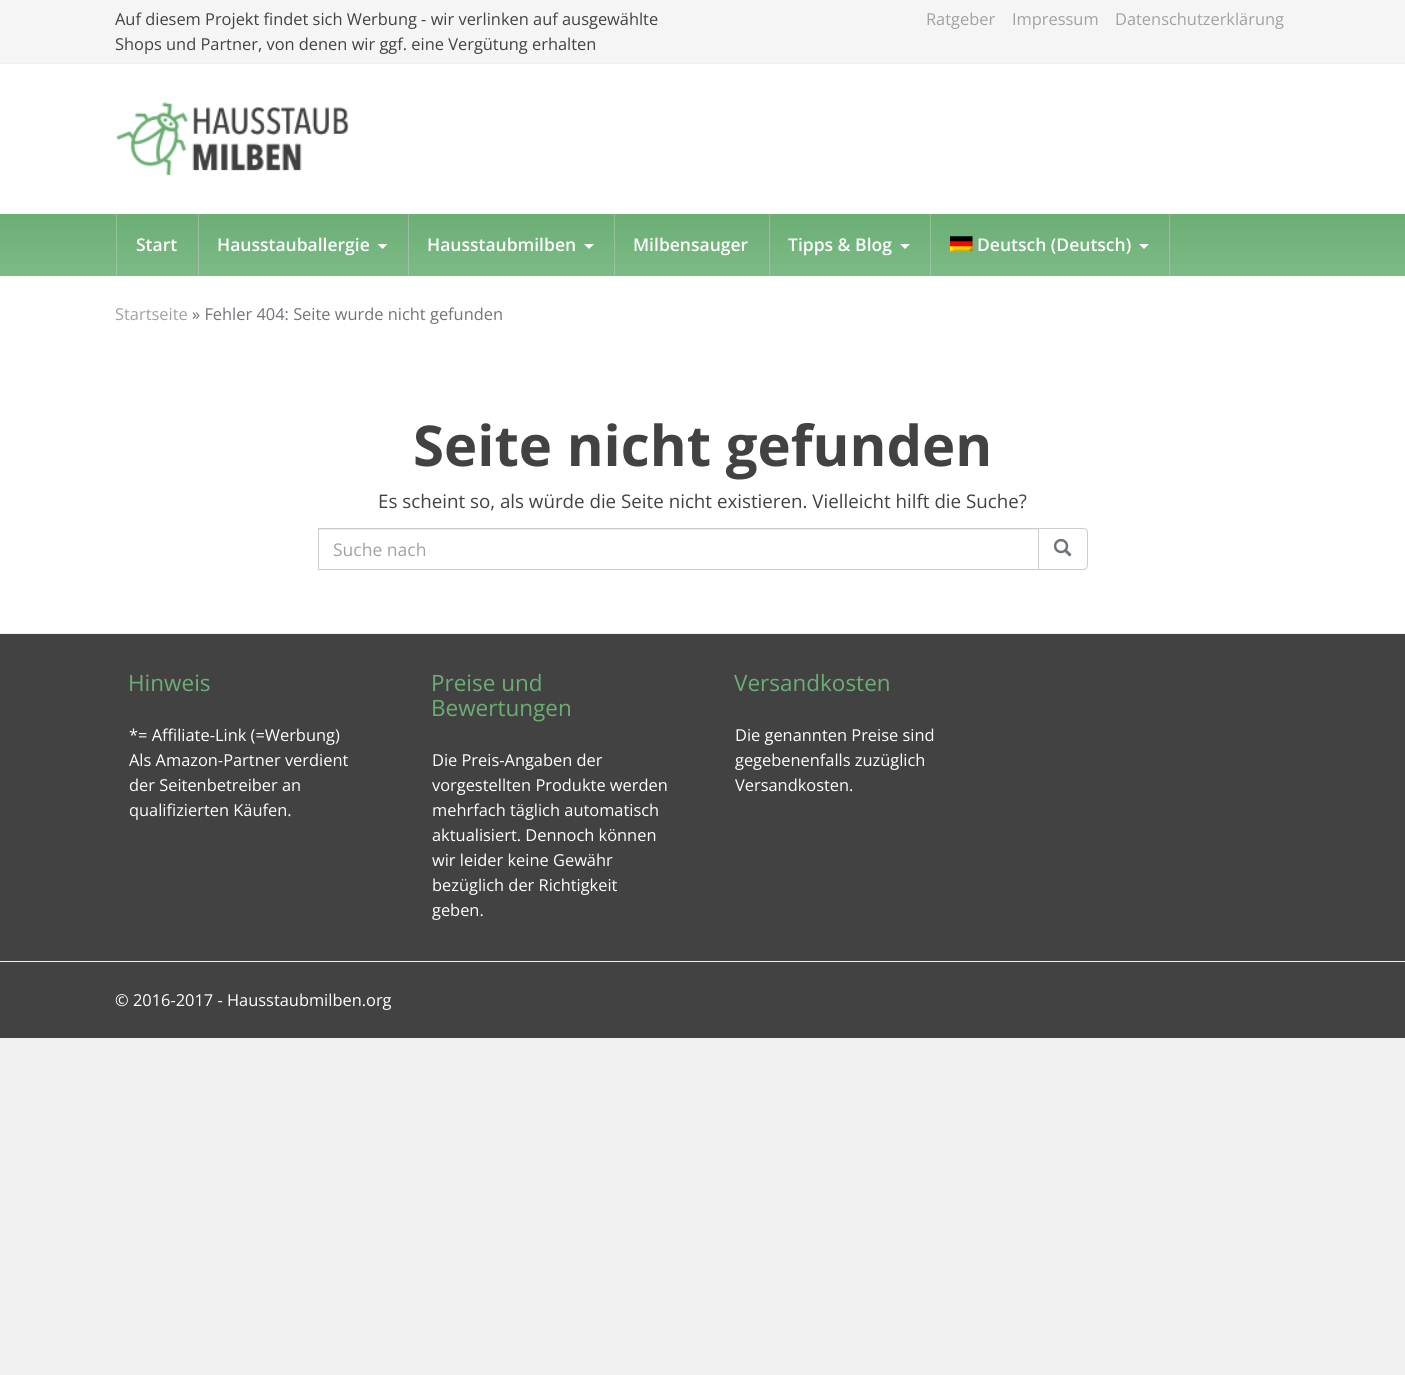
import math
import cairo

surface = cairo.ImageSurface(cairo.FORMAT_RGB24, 1405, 1375)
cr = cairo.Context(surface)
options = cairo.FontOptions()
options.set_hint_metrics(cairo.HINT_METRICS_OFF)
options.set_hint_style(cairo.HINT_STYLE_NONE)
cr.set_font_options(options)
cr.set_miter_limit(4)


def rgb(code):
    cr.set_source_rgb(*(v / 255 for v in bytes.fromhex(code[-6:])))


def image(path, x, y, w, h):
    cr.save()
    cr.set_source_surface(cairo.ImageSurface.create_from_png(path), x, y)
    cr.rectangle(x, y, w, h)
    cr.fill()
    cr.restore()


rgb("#f0f0f0")
cr.paint()
rgb("#f5f5f5")
cr.rectangle(0, 0, 1405, 63)
cr.fill()
rgb("#ffffff")
cr.rectangle(0, 64, 1405, 150)
cr.fill()
image("img/1.png", 116, 102, 233, 74)
gradient = cairo.LinearGradient(703, 214, 703, 276)
gradient.add_color_stop_rgba(0, 0.42, 0.682, 0.455, 1)
gradient.add_color_stop_rgba(1, 0.49, 0.733, 0.525, 1)
cr.set_source(gradient)
cr.rectangle(0, 214, 1405, 62)
cr.fill()
gradient = cairo.LinearGradient(703, 214, 703, 276)
gradient.add_color_stop_rgba(0, 0.565, 0.749, 0.588, 1)
gradient.add_color_stop_rgba(1, 0.612, 0.784, 0.639, 1)
cr.set_source(gradient)
cr.rectangle(930, 214, 1, 62)
cr.fill()
gradient = cairo.LinearGradient(703, 214, 703, 276)
gradient.add_color_stop_rgba(0, 0.471, 0.655, 0.494, 1)
gradient.add_color_stop_rgba(1, 0.522, 0.69, 0.545, 1)
cr.set_source(gradient)
cr.rectangle(1168, 214, 1, 62)
cr.fill()
gradient = cairo.LinearGradient(703, 214, 703, 276)
gradient.add_color_stop_rgba(0, 0.565, 0.749, 0.588, 1)
gradient.add_color_stop_rgba(1, 0.612, 0.784, 0.639, 1)
cr.set_source(gradient)
cr.rectangle(769, 214, 1, 62)
cr.fill()
gradient = cairo.LinearGradient(703, 214, 703, 276)
gradient.add_color_stop_rgba(0, 0.471, 0.655, 0.494, 1)
gradient.add_color_stop_rgba(1, 0.522, 0.69, 0.545, 1)
cr.set_source(gradient)
cr.rectangle(929, 214, 1, 62)
cr.fill()
gradient = cairo.LinearGradient(703, 214, 703, 276)
gradient.add_color_stop_rgba(0, 0.565, 0.749, 0.588, 1)
gradient.add_color_stop_rgba(1, 0.612, 0.784, 0.639, 1)
cr.set_source(gradient)
cr.rectangle(614, 214, 1, 62)
cr.fill()
gradient = cairo.LinearGradient(703, 214, 703, 276)
gradient.add_color_stop_rgba(0, 0.471, 0.655, 0.494, 1)
gradient.add_color_stop_rgba(1, 0.522, 0.69, 0.545, 1)
cr.set_source(gradient)
cr.rectangle(768, 214, 1, 62)
cr.fill()
gradient = cairo.LinearGradient(703, 214, 703, 276)
gradient.add_color_stop_rgba(0, 0.565, 0.749, 0.588, 1)
gradient.add_color_stop_rgba(1, 0.612, 0.784, 0.639, 1)
cr.set_source(gradient)
cr.rectangle(408, 214, 1, 62)
cr.fill()
gradient = cairo.LinearGradient(703, 214, 703, 276)
gradient.add_color_stop_rgba(0, 0.471, 0.655, 0.494, 1)
gradient.add_color_stop_rgba(1, 0.522, 0.69, 0.545, 1)
cr.set_source(gradient)
cr.rectangle(613, 214, 1, 62)
cr.fill()
gradient = cairo.LinearGradient(703, 214, 703, 276)
gradient.add_color_stop_rgba(0, 0.565, 0.749, 0.588, 1)
gradient.add_color_stop_rgba(1, 0.612, 0.784, 0.639, 1)
cr.set_source(gradient)
cr.rectangle(198, 214, 1, 62)
cr.fill()
gradient = cairo.LinearGradient(703, 214, 703, 276)
gradient.add_color_stop_rgba(0, 0.471, 0.655, 0.494, 1)
gradient.add_color_stop_rgba(1, 0.522, 0.69, 0.545, 1)
cr.set_source(gradient)
cr.rectangle(406, 214, 1, 62)
cr.fill()
gradient = cairo.LinearGradient(703, 214, 703, 276)
gradient.add_color_stop_rgba(0, 0.565, 0.749, 0.588, 1)
gradient.add_color_stop_rgba(1, 0.612, 0.784, 0.639, 1)
cr.set_source(gradient)
cr.rectangle(116, 214, 1, 62)
cr.fill()
gradient = cairo.LinearGradient(703, 214, 703, 276)
gradient.add_color_stop_rgba(0, 0.471, 0.655, 0.494, 1)
gradient.add_color_stop_rgba(1, 0.522, 0.69, 0.545, 1)
cr.set_source(gradient)
cr.rectangle(196, 214, 1, 62)
cr.fill()
cr.rectangle(115, 214, 1, 62)
cr.fill()
gradient = cairo.LinearGradient(703, 214, 703, 276)
gradient.add_color_stop_rgba(0, 0.565, 0.749, 0.588, 1)
gradient.add_color_stop_rgba(1, 0.612, 0.784, 0.639, 1)
cr.set_source(gradient)
cr.rectangle(1169, 214, 1, 62)
cr.fill()
rgb("#ffffff")
cr.new_path()
cr.move_to(377.5, 244)
cr.line_to(387.5, 244)
cr.line_to(382.5, 249)
cr.close_path()
cr.fill()
cr.new_path()
cr.move_to(584, 244)
cr.line_to(594, 244)
cr.line_to(589, 249)
cr.close_path()
cr.fill()
cr.new_path()
cr.move_to(900, 244)
cr.line_to(910, 244)
cr.line_to(905, 249)
cr.close_path()
cr.fill()
image("img/2.png", 950, 236, 23, 16)
cr.new_path()
cr.move_to(1139, 244)
cr.line_to(1149, 244)
cr.line_to(1144, 249)
cr.close_path()
cr.fill()
cr.rectangle(0, 276, 1405, 357)
cr.fill()
rgb("#ececec")
cr.rectangle(319, 529, 719, 1)
cr.fill()
cr.rectangle(318.5, 528.5, 720, 41)
rgb("#cccccc")
cr.set_line_width(1)
cr.stroke()
rgb("#ffffff")
cr.new_path()
cr.move_to(1038.5, 528.5)
cr.line_to(1083, 528.5)
cr.curve_to(1085.5, 528.5, 1087.5, 530.5, 1087.5, 533)
cr.line_to(1087.5, 565)
cr.curve_to(1087.5, 567.5, 1085.5, 569.5, 1083, 569.5)
cr.line_to(1038.5, 569.5)
cr.close_path()
cr.fill_preserve()
rgb("#cccccc")
cr.stroke()
image("img/3.png", 1053, 538, 19, 19)
rgb("#424242")
cr.rectangle(0, 634, 1405, 327)
cr.fill()
cr.rectangle(0, 962, 1405, 76)
cr.fill()
cr.select_font_face("Open Sans")
cr.set_font_size(16.4)
cr.move_to(115, 25)
cr.show_text("Auf diesem Projekt findet sich Werbung - wir verlinken auf ausgewählte")
cr.move_to(115, 50)
cr.show_text("Shops und Partner, von denen wir ggf. eine Vergütung erhalten")
rgb("#9fa2a5")
for x, y, s in [
    (926, 25, "Ratgeber"),
    (1012, 25, "Impressum"),
    (1115, 25, "Datenschutzerklärung"),
]:
    cr.move_to(x, y)
    cr.show_text(s)
cr.select_font_face("Open Sans SemiBold")
cr.set_font_size(17.5)
rgb("#ffffff")
for x, y, s in [
    (136, 251, "Start"),
    (217, 251, "Hausstauballergie"),
    (427, 251, "Hausstaubmilben"),
    (633, 251, "Milbensauger"),
    (788, 251, "Tipps & Blog"),
    (977, 251, "Deutsch (Deutsch)"),
]:
    cr.move_to(x, y)
    cr.show_text(s)
cr.select_font_face("Open Sans")
cr.set_font_size(16.4)
rgb("#9fa2a5")
cr.move_to(115, 320)
cr.show_text("Startseite")
rgb("#6f7479")
cr.move_to(192, 320)
cr.show_text("» Fehler 404: Seite wurde nicht gefunden")
cr.select_font_face("Open Sans", cairo.FONT_SLANT_NORMAL, cairo.FONT_WEIGHT_BOLD)
cr.set_font_size(56.25)
rgb("#424242")
cr.move_to(413, 466)
cr.show_text("Seite nicht gefunden")
cr.select_font_face("Open Sans")
cr.set_font_size(18.75)
cr.move_to(378, 508)
cr.show_text("Es scheint so, als würde die Seite nicht existieren. Vielleicht hilft die Suche?")
cr.set_font_size(17.5)
rgb("#9fa2a5")
cr.move_to(333, 556)
cr.show_text("Suche nach")
cr.set_font_size(22.5)
rgb("#6bae74")
cr.move_to(128, 691)
cr.show_text("Hinweis")
cr.set_font_size(16.4)
rgb("#ffffff")
for x, y, s in [
    (129, 741, "*= Affiliate-Link (=Werbung)"),
    (129, 766, "Als Amazon-Partner verdient"),
    (129, 791, "der Seitenbetreiber an"),
    (129, 816, "qualifizierten Käufen."),
]:
    cr.move_to(x, y)
    cr.show_text(s)
cr.set_font_size(22.5)
rgb("#6bae74")
cr.move_to(431, 691)
cr.show_text("Preise und")
cr.move_to(431, 716)
cr.show_text("Bewertungen")
cr.set_font_size(16.4)
rgb("#ffffff")
for x, y, s in [
    (432, 766, "Die Preis-Angaben der"),
    (432, 791, "vorgestellten Produkte werden"),
    (432, 816, "mehrfach täglich automatisch"),
    (432, 841, "aktualisiert. Dennoch können"),
    (432, 866, "wir leider keine Gewähr"),
    (432, 891, "bezüglich der Richtigkeit"),
    (432, 916, "geben."),
]:
    cr.move_to(x, y)
    cr.show_text(s)
cr.set_font_size(22.5)
rgb("#6bae74")
cr.move_to(734, 691)
cr.show_text("Versandkosten")
cr.set_font_size(16.4)
rgb("#ffffff")
for x, y, s in [
    (735, 741, "Die genannten Preise sind"),
    (735, 766, "gegebenenfalls zuzüglich"),
    (735, 791, "Versandkosten."),
    (115, 1006, "© 2016-2017 - Hausstaubmilben.org"),
]:
    cr.move_to(x, y)
    cr.show_text(s)
surface.write_to_png("page.png")
